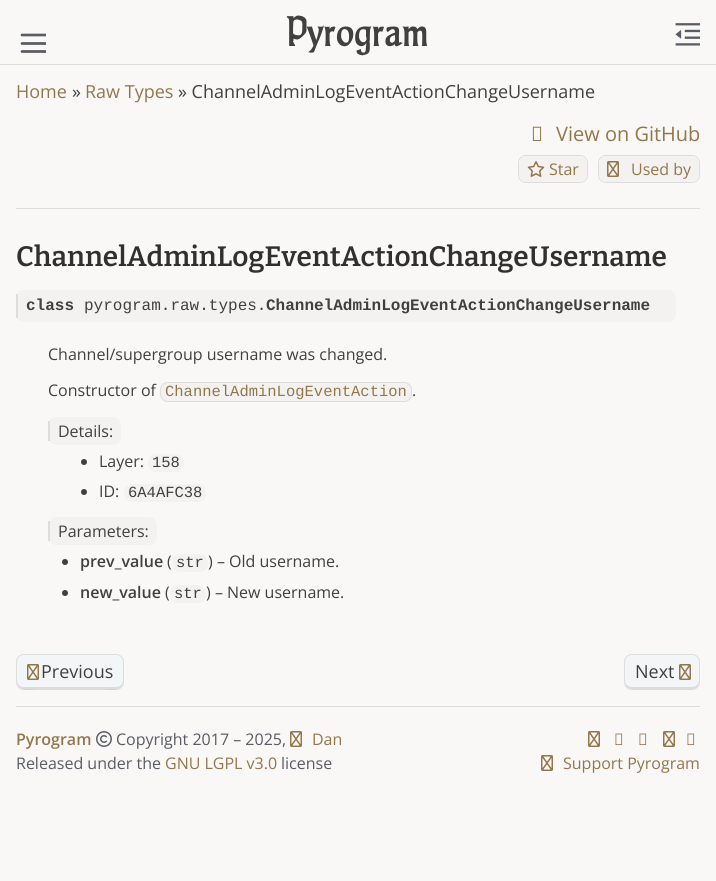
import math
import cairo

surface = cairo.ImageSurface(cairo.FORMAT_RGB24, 716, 881)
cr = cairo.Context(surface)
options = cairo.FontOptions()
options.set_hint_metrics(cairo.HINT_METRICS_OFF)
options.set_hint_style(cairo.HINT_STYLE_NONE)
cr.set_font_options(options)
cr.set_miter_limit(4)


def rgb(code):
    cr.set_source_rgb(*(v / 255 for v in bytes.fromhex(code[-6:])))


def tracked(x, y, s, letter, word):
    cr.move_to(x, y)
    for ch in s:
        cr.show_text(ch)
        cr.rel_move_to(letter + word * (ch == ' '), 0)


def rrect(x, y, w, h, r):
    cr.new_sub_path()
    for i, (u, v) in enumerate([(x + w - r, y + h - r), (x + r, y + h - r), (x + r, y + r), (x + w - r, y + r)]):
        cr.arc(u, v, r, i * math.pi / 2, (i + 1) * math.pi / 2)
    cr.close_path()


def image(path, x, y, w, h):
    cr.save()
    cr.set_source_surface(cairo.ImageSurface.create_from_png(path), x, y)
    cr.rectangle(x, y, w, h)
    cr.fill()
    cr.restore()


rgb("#f9f8f7")
cr.paint()
rgb("#dddddd")
cr.rectangle(0, 64, 716, 1)
cr.fill()
cr.save()
cr.rectangle(18, 27, 28, 28)
cr.clip()
cr.new_path()
cr.move_to(22, 43.5)
cr.line_to(46.5, 43.5)
cr.move_to(22, 35)
cr.line_to(46.5, 35)
cr.move_to(22, 51.5)
cr.line_to(46.5, 51.5)
rgb("#5a5c63")
cr.set_line_width(2.7)
cr.set_line_cap(cairo.LINE_CAP_ROUND)
cr.set_line_join(cairo.LINE_JOIN_ROUND)
cr.stroke()
cr.restore()
image("img/1.png", 675, 23, 25, 23)
image("img/2.png", 532, 126, 10, 15)
rrect(518.5, 155.5, 69, 27, 7.5)
cr.set_line_width(1)
cr.stroke()
rgb("#f3f2f1")
rrect(519, 156, 68, 26, 7)
cr.fill()
image("img/3.png", 527, 161, 18, 16)
rrect(598.5, 155.5, 101, 27, 7.5)
rgb("#dddddd")
cr.stroke()
rgb("#f3f2f1")
rrect(599, 156, 100, 26, 7)
cr.fill()
image("img/4.png", 607, 161, 12, 16)
rgb("#dddddd")
cr.rectangle(16, 208, 684, 1)
cr.fill()
rgb("#f3f2f1")
rrect(16, 290, 660, 32, 8)
cr.fill()
rgb("#dddddd")
cr.rectangle(16, 294, 2, 24)
cr.fill()
rgb("#f3f2f1")
rrect(160.5, 382.5, 251, 19, 7.5)
cr.fill_preserve()
rgb("#dddddd")
cr.stroke()
rgb("#f3f2f1")
rrect(48, 417, 73, 28, 8)
cr.fill()
rgb("#dddddd")
cr.rectangle(48, 421, 2, 20)
cr.fill()
rgb("#404040")
cr.arc(84, 462, 3, 0, 2 * math.pi)
cr.fill()
rgb("#f3f2f1")
rrect(148, 454, 36, 18, 8)
cr.fill()
rgb("#404040")
cr.arc(84, 492, 3, 0, 2 * math.pi)
cr.fill()
rgb("#f3f2f1")
rrect(124, 484, 82, 18, 8)
cr.fill()
rrect(48, 517, 109, 28, 8)
cr.fill()
rgb("#dddddd")
cr.rectangle(48, 521, 2, 20)
cr.fill()
rgb("#404040")
cr.arc(65, 562, 3, 0, 2 * math.pi)
cr.fill()
rgb("#f3f2f1")
rrect(172, 554, 36, 18, 8)
cr.fill()
rgb("#404040")
cr.arc(65, 593, 3, 0, 2 * math.pi)
cr.fill()
rgb("#f3f2f1")
rrect(170, 585, 36, 18, 8)
cr.fill()
rgb("#f3f6f6")
rrect(16, 654, 108, 36, 8)
cr.fill()
rgb("#dbdddd")
cr.new_path()
cr.move_to(17, 680)
cr.curve_to(17, 693, 30, 689, 39, 689)
cr.line_to(101, 689)
cr.curve_to(110, 689, 123, 693, 123, 680)
cr.curve_to(123, 684, 120, 687, 116, 687)
cr.line_to(24, 687)
cr.curve_to(20, 687, 17, 684, 17, 680)
cr.close_path()
cr.fill()
rrect(16.5, 654.5, 107, 35, 7.5)
cr.set_source_rgba(0, 0, 0, 0.1)
cr.stroke()
image("img/5.png", 27, 664, 12, 16)
rgb("#f3f6f6")
rrect(624, 654, 76, 36, 8)
cr.fill()
rgb("#dbdddd")
cr.new_path()
cr.move_to(625, 680)
cr.curve_to(625, 691, 633, 689, 642, 689)
cr.line_to(682, 689)
cr.curve_to(691, 689, 699, 691, 699, 680)
cr.curve_to(699, 684, 696, 687, 692, 687)
cr.line_to(632, 687)
cr.curve_to(628, 687, 625, 684, 625, 680)
cr.close_path()
cr.fill()
rrect(624.5, 654.5, 75, 35, 7.5)
cr.set_source_rgba(0, 0, 0, 0.1)
cr.stroke()
image("img/5.png", 679, 664, 12, 16)
rgb("#dddddd")
cr.rectangle(16, 706, 684, 1)
cr.fill()
image("img/6.png", 96, 731, 16, 16)
image("img/7.png", 290, 731, 12, 16)
image("img/7.png", 588, 731, 12, 16)
image("img/8.png", 615, 733, 8, 12)
image("img/8.png", 639, 733, 8, 12)
image("img/7.png", 663, 731, 12, 16)
image("img/8.png", 687, 733, 8, 12)
image("img/7.png", 541, 755, 12, 16)
cr.select_font_face("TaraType", cairo.FONT_SLANT_NORMAL, cairo.FONT_WEIGHT_BOLD)
cr.set_font_size(38)
rgb("#404040")
tracked(286, 46, "Pyrogram", 1.5, 0)
cr.select_font_face("Open Sans")
cr.set_font_size(18)
rgb("#93774b")
cr.move_to(16, 98)
cr.show_text("Home")
rgb("#404040")
cr.move_to(72, 98)
cr.show_text("»")
rgb("#93774b")
cr.move_to(85, 98)
cr.show_text("Raw Types")
rgb("#404040")
cr.move_to(178, 98)
cr.show_text("» ChannelAdminLogEventActionChangeUsername")
cr.set_font_size(20)
rgb("#93774b")
cr.move_to(556, 141)
cr.show_text("View on GitHub")
cr.set_font_size(16)
cr.move_to(549, 175)
cr.show_text("Star")
cr.move_to(631, 175)
cr.show_text("Used by")
cr.select_font_face("Bitter SemiBold")
cr.set_font_size(28)
rgb("#303030")
cr.move_to(16, 266)
cr.show_text("ChannelAdminLogEventActionChangeUsername")
cr.select_font_face("Liberation Mono", cairo.FONT_SLANT_NORMAL, cairo.FONT_WEIGHT_BOLD)
cr.set_font_size(16)
rgb("#404040")
cr.move_to(26, 310)
cr.show_text("class")
cr.select_font_face("Liberation Mono")
cr.move_to(84, 310)
cr.show_text("pyrogram.raw.types.")
cr.select_font_face("Liberation Mono", cairo.FONT_SLANT_NORMAL, cairo.FONT_WEIGHT_BOLD)
cr.move_to(266, 310)
cr.show_text("ChannelAdminLogEventActionChangeUsername")
cr.select_font_face("Open Sans")
cr.move_to(48, 360)
cr.show_text("Channel/supergroup username was changed.")
cr.move_to(48, 396)
cr.show_text("Constructor of")
cr.select_font_face("Liberation Mono")
cr.set_font_size(15.5)
rgb("#93774b")
cr.move_to(165, 396)
cr.show_text("ChannelAdminLogEventAction")
cr.select_font_face("Open Sans")
cr.set_font_size(16)
rgb("#404040")
for x, y, s in [
    (412, 396, "."),
    (58, 437, "Details:"),
    (99, 467, "Layer:"),
]:
    cr.move_to(x, y)
    cr.show_text(s)
cr.select_font_face("Liberation Mono")
cr.set_font_size(15.5)
cr.move_to(152, 467)
cr.show_text("158")
cr.select_font_face("Open Sans")
cr.set_font_size(16)
cr.move_to(99, 497)
cr.show_text("ID:")
cr.select_font_face("Liberation Mono")
cr.set_font_size(15.5)
cr.move_to(128, 497)
cr.show_text("6A4AFC38")
cr.select_font_face("Open Sans")
cr.set_font_size(16)
cr.move_to(58, 537)
cr.show_text("Parameters:")
cr.select_font_face("Open Sans SemiBold")
cr.move_to(80, 567)
cr.show_text("prev_value")
cr.select_font_face("Open Sans")
cr.move_to(167, 567)
cr.show_text("(")
cr.select_font_face("Liberation Mono")
cr.set_font_size(15.5)
cr.move_to(176, 567)
cr.show_text("str")
cr.select_font_face("Open Sans")
cr.set_font_size(16)
cr.move_to(208, 567)
cr.show_text(") – Old username.")
cr.select_font_face("Open Sans SemiBold")
cr.move_to(80, 598)
cr.show_text("new_value")
cr.select_font_face("Open Sans")
cr.move_to(165, 598)
cr.show_text("(")
cr.select_font_face("Liberation Mono")
cr.set_font_size(15.5)
cr.move_to(174, 598)
cr.show_text("str")
cr.select_font_face("Open Sans")
cr.set_font_size(16)
cr.move_to(206, 598)
cr.show_text(") – New username.")
cr.set_font_size(18)
cr.move_to(41, 678)
cr.show_text("Previous")
cr.move_to(635, 678)
cr.show_text("Next")
cr.select_font_face("Open Sans SemiBold")
cr.set_font_size(16)
rgb("#93774b")
cr.move_to(16, 745)
cr.show_text("Pyrogram")
cr.select_font_face("Open Sans")
rgb("#5a5c63")
cr.move_to(116, 745)
cr.show_text("Copyright 2017 – 2025,")
rgb("#93774b")
cr.move_to(312, 745)
cr.show_text("Dan")
rgb("#5a5c63")
cr.move_to(16, 769)
cr.show_text("Released under the")
rgb("#93774b")
cr.move_to(165, 769)
cr.show_text("GNU LGPL v3.0")
rgb("#5a5c63")
cr.move_to(281, 769)
cr.show_text("license")
rgb("#93774b")
cr.move_to(563, 769)
cr.show_text("Support Pyrogram")
surface.write_to_png("page.png")
